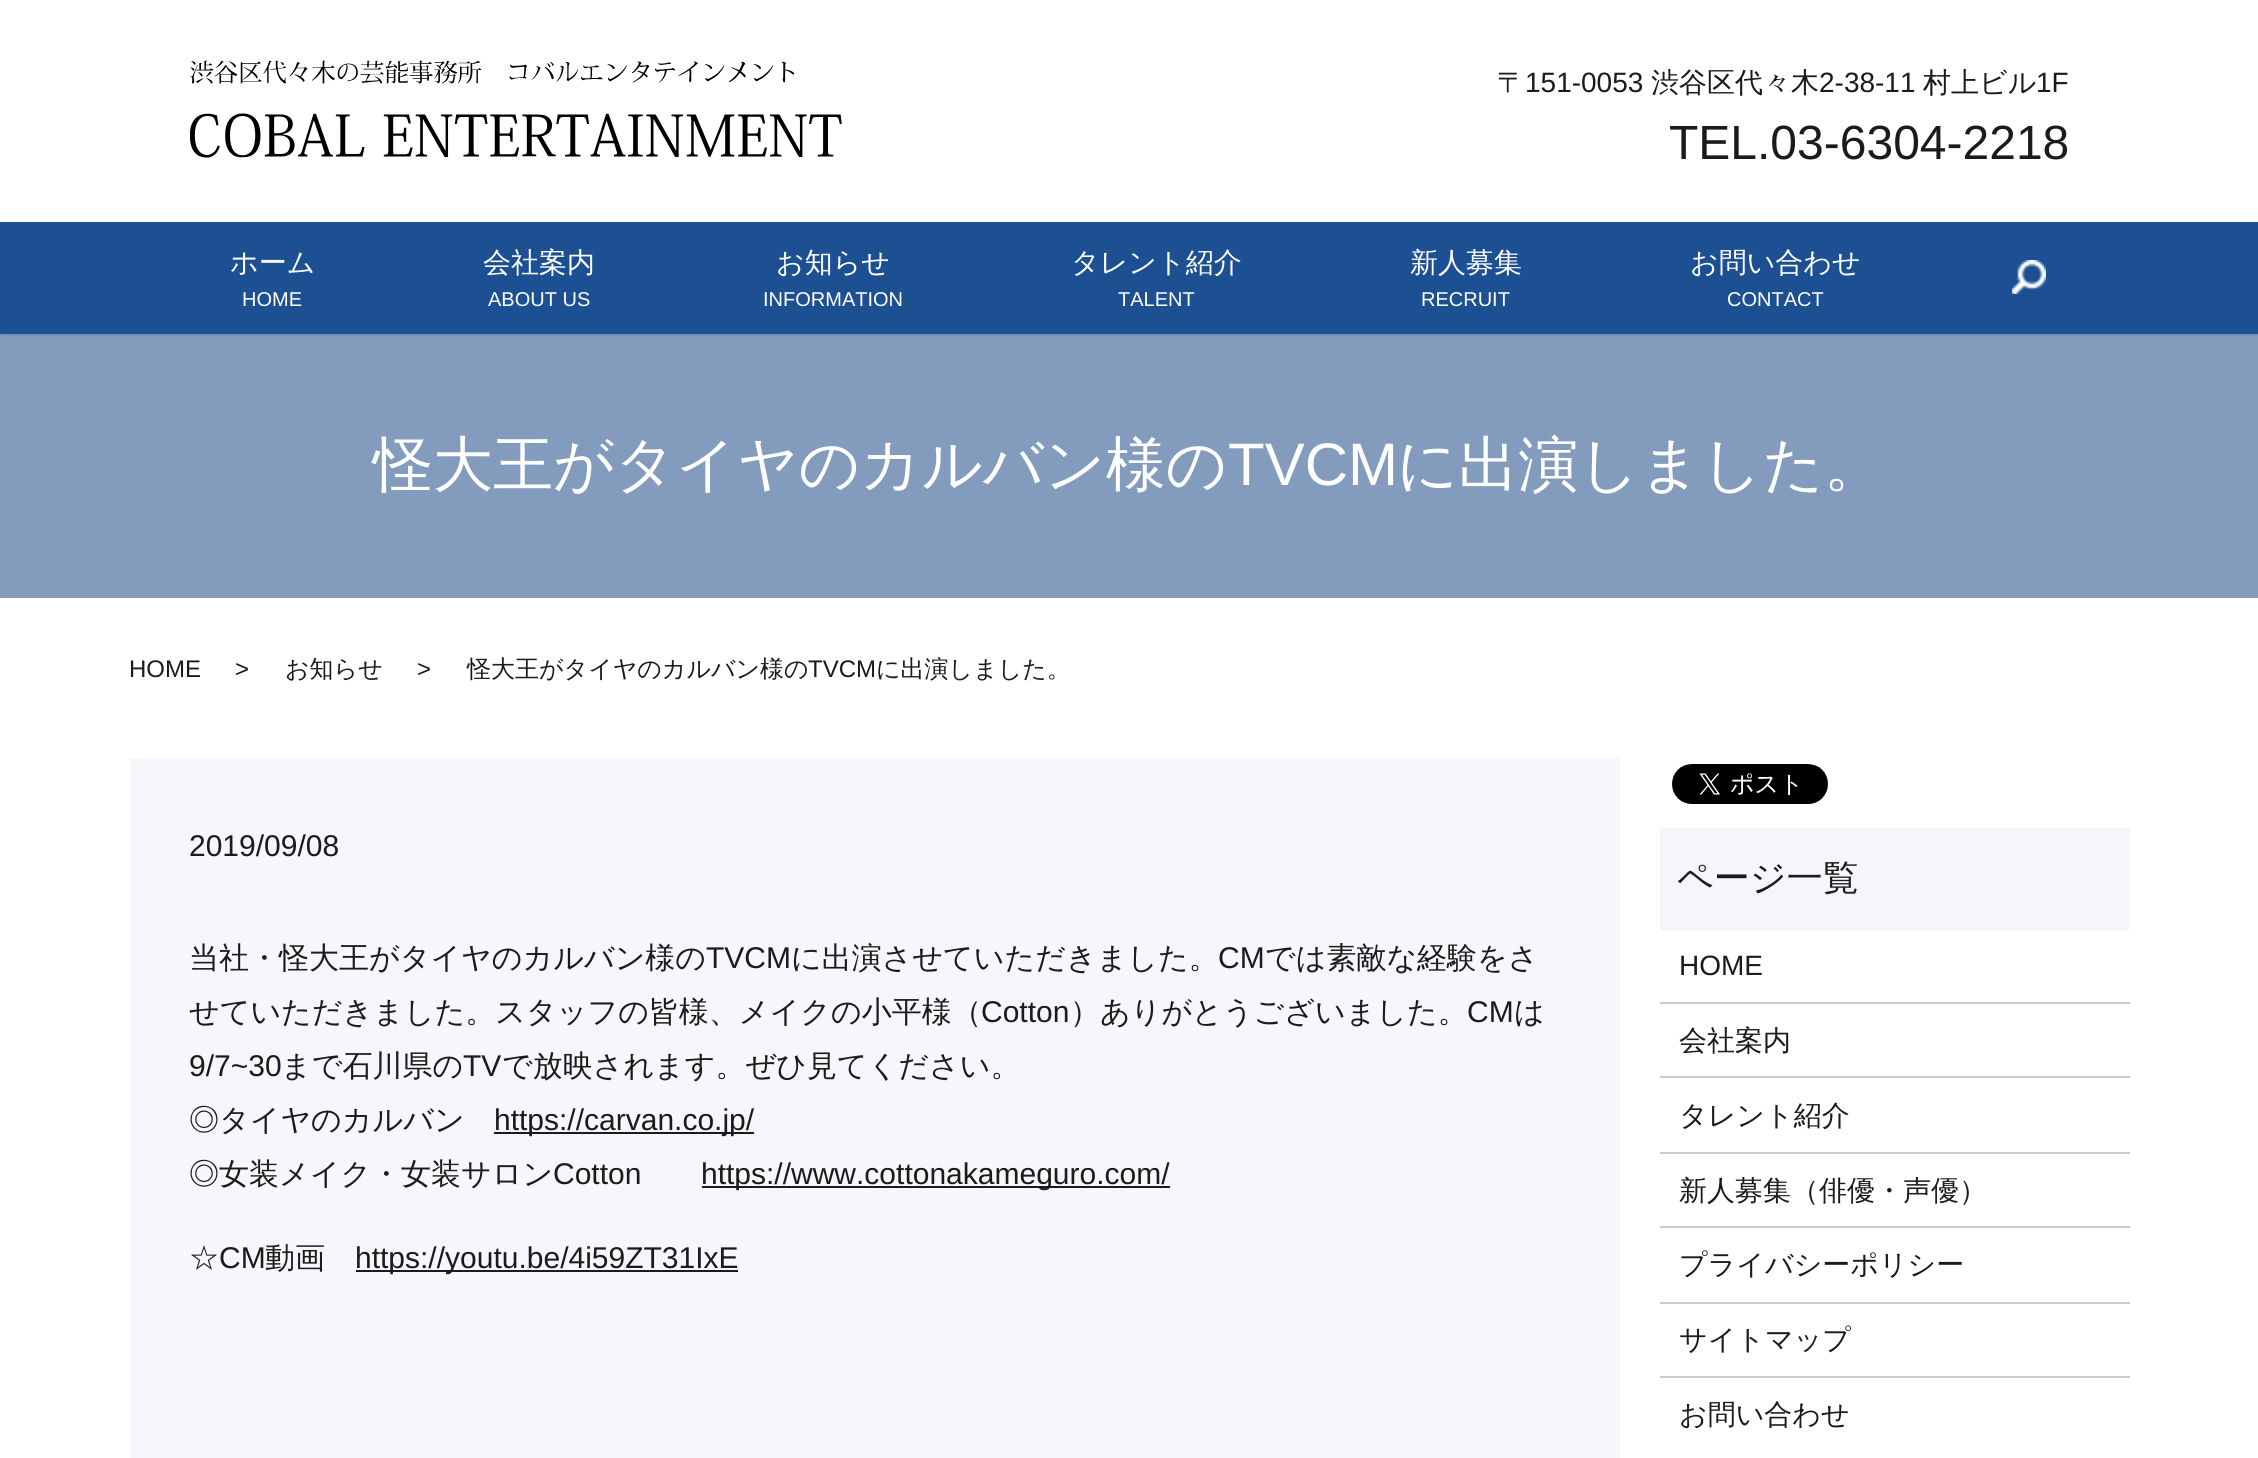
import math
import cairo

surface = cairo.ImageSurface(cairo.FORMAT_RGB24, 2258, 1458)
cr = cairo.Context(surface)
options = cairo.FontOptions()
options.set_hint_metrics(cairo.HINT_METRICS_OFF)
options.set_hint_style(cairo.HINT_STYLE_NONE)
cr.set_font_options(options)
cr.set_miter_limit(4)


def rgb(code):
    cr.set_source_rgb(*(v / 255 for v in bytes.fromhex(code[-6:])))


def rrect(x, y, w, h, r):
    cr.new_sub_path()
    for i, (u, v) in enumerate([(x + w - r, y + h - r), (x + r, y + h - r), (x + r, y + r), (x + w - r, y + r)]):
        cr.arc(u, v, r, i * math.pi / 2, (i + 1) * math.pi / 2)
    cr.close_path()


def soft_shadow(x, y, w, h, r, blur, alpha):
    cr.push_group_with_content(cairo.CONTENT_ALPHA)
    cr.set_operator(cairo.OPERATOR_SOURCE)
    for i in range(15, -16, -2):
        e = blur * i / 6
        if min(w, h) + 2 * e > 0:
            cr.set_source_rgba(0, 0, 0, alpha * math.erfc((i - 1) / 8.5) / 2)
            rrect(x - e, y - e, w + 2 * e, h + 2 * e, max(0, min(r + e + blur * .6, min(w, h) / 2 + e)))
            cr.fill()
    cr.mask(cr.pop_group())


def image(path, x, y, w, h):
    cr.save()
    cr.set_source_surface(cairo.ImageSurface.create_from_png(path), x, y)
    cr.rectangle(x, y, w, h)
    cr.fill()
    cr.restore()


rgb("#ffffff")
cr.paint()
rgb("#839cbe")
cr.rectangle(0, 334, 2258, 264)
cr.fill()
cr.save()
cr.rectangle(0, 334, 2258, 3)
cr.clip()
rgb("#000000")
soft_shadow(0, 2, 2258, 334, 0, 1, 0.1)
cr.restore()
image("img/1.png", 190, 60, 652, 98)
rgb("#1c5093")
cr.rectangle(0, 222, 2258, 112)
cr.fill()
image("img/2.png", 2012, 260, 34, 34)
for x, y, w, h, color in [
    (130, 758, 1490, 700, "#f5f7fa"),
    (494, 1132, 260, 2, "#1b1b1b"),
    (702, 1186, 468, 2, "#1b1b1b"),
    (356, 1270, 382, 2, "#1b1b1b"),
]:
    rgb(color)
    cr.rectangle(x, y, w, h)
    cr.fill()
image("img/3.png", 1672, 764, 156, 40)
for x, y, w, h, color in [
    (1660, 828, 470, 102, "#f4f6fa"),
    (1660, 1002, 470, 2, "#cccccc"),
    (1660, 1076, 470, 2, "#cccccc"),
    (1660, 1152, 470, 2, "#cccccc"),
    (1660, 1226, 470, 2, "#cccccc"),
    (1660, 1302, 470, 2, "#cccccc"),
    (1660, 1376, 470, 2, "#cccccc"),
]:
    rgb(color)
    cr.rectangle(x, y, w, h)
    cr.fill()
cr.select_font_face("WenQuanYi Zen Hei Medium")
cr.set_font_size(28)
rgb("#1b1b1b")
cr.move_to(1497, 92)
cr.show_text("〒")
cr.select_font_face("Liberation Sans")
cr.move_to(1525, 92)
cr.show_text("151-0053")
cr.select_font_face("WenQuanYi Zen Hei Medium")
cr.move_to(1651, 92)
cr.show_text("渋谷区代々木")
cr.select_font_face("Liberation Sans")
cr.move_to(1819, 92)
cr.show_text("2-38-11")
cr.select_font_face("WenQuanYi Zen Hei Medium")
cr.move_to(1923, 92)
cr.show_text("村上ビル")
cr.select_font_face("Liberation Sans")
cr.move_to(2036, 92)
cr.show_text("1F")
cr.set_font_size(48)
cr.move_to(1669, 159)
cr.show_text("TEL.03-6304-2218")
cr.select_font_face("WenQuanYi Zen Hei Medium")
cr.set_font_size(28)
rgb("#ffffff")
cr.move_to(230, 272)
cr.show_text("ホーム")
cr.select_font_face("Liberation Sans")
cr.set_font_size(20)
cr.move_to(242, 306)
cr.show_text("HOME")
cr.select_font_face("WenQuanYi Zen Hei Medium")
cr.set_font_size(28)
cr.move_to(483, 272)
cr.show_text("会社案内")
cr.select_font_face("Liberation Sans")
cr.set_font_size(20)
cr.move_to(488, 306)
cr.show_text("ABOUT US")
cr.select_font_face("WenQuanYi Zen Hei Medium")
cr.set_font_size(28)
cr.move_to(776, 272)
cr.show_text("お知らせ")
cr.select_font_face("Liberation Sans")
cr.set_font_size(20)
cr.move_to(763, 306)
cr.show_text("INFORMATION")
cr.select_font_face("WenQuanYi Zen Hei Medium")
cr.set_font_size(28)
cr.move_to(1071, 272)
cr.show_text("タレント紹介")
cr.select_font_face("Liberation Sans")
cr.set_font_size(20)
cr.move_to(1118, 306)
cr.show_text("TALENT")
cr.select_font_face("WenQuanYi Zen Hei Medium")
cr.set_font_size(28)
cr.move_to(1410, 272)
cr.show_text("新人募集")
cr.select_font_face("Liberation Sans")
cr.set_font_size(20)
cr.move_to(1421, 306)
cr.show_text("RECRUIT")
cr.select_font_face("WenQuanYi Zen Hei Medium")
cr.set_font_size(28)
cr.move_to(1690, 272)
cr.show_text("お問い合わせ")
cr.select_font_face("Liberation Sans")
cr.set_font_size(20)
cr.move_to(1727, 306)
cr.show_text("CONTACT")
cr.select_font_face("WenQuanYi Zen Hei Medium")
cr.set_font_size(60)
cr.move_to(373, 485)
cr.show_text("怪大王がタイヤのカルバン様の")
cr.select_font_face("Liberation Sans")
cr.move_to(1228, 485)
cr.show_text("TVCM")
cr.select_font_face("WenQuanYi Zen Hei Medium")
cr.move_to(1397, 485)
cr.show_text("に出演しました。")
cr.select_font_face("Liberation Sans")
cr.set_font_size(24)
rgb("#1b1b1b")
cr.move_to(129, 677)
cr.show_text("HOME")
cr.move_to(235, 677)
cr.show_text(">")
cr.select_font_face("WenQuanYi Zen Hei Medium")
cr.move_to(285, 677)
cr.show_text("お知らせ")
cr.select_font_face("Liberation Sans")
cr.move_to(417, 677)
cr.show_text(">")
cr.select_font_face("WenQuanYi Zen Hei Medium")
cr.move_to(467, 677)
cr.show_text("怪大王がタイヤのカルバン様の")
cr.select_font_face("Liberation Sans")
cr.move_to(808, 677)
cr.show_text("TVCM")
cr.select_font_face("WenQuanYi Zen Hei Medium")
cr.move_to(876, 677)
cr.show_text("に出演しました。")
cr.select_font_face("Liberation Sans")
cr.set_font_size(30)
cr.move_to(189, 856)
cr.show_text("2019/09/08")
cr.select_font_face("WenQuanYi Zen Hei Medium")
cr.move_to(189, 968)
cr.show_text("当社・怪大王がタイヤのカルバン様の")
cr.select_font_face("Liberation Sans")
cr.move_to(706, 968)
cr.show_text("TVCM")
cr.select_font_face("WenQuanYi Zen Hei Medium")
cr.move_to(791, 968)
cr.show_text("に出演させていただきました。")
cr.select_font_face("Liberation Sans")
cr.move_to(1218, 968)
cr.show_text("CM")
cr.select_font_face("WenQuanYi Zen Hei Medium")
cr.move_to(1265, 968)
cr.show_text("では素敵な経験をさ")
cr.move_to(189, 1022)
cr.show_text("せていただきました。スタッフの皆様、メイクの小平様（")
cr.select_font_face("Liberation Sans")
cr.move_to(981, 1022)
cr.show_text("Cotton")
cr.select_font_face("WenQuanYi Zen Hei Medium")
cr.move_to(1070, 1022)
cr.show_text("）ありがとうございました。")
cr.select_font_face("Liberation Sans")
cr.move_to(1467, 1022)
cr.show_text("CM")
cr.select_font_face("WenQuanYi Zen Hei Medium")
cr.move_to(1514, 1022)
cr.show_text("は")
cr.select_font_face("Liberation Sans")
cr.move_to(189, 1076)
cr.show_text("9/7~30")
cr.select_font_face("WenQuanYi Zen Hei Medium")
cr.move_to(281, 1076)
cr.show_text("まで石川県の")
cr.select_font_face("Liberation Sans")
cr.move_to(463, 1076)
cr.show_text("TV")
cr.select_font_face("WenQuanYi Zen Hei Medium")
cr.move_to(502, 1076)
cr.show_text("で放映されます。ぜひ見てください。")
cr.move_to(189, 1130)
cr.show_text("◎タイヤのカルバン")
cr.select_font_face("Liberation Sans")
cr.move_to(494, 1130)
cr.show_text("https://carvan.co.jp/")
cr.select_font_face("WenQuanYi Zen Hei Medium")
cr.move_to(189, 1184)
cr.show_text("◎女装メイク・女装サロン")
cr.select_font_face("Liberation Sans")
cr.move_to(553, 1184)
cr.show_text("Cotton")
cr.move_to(701, 1184)
cr.show_text("https://www.cottonakameguro.com/")
cr.select_font_face("WenQuanYi Zen Hei Medium")
cr.move_to(189, 1268)
cr.show_text("☆")
cr.select_font_face("Liberation Sans")
cr.move_to(219, 1268)
cr.show_text("CM")
cr.select_font_face("WenQuanYi Zen Hei Medium")
cr.move_to(265, 1268)
cr.show_text("動画")
cr.select_font_face("Liberation Sans")
cr.move_to(355, 1268)
cr.show_text("https://youtu.be/4i59ZT31IxE")
cr.select_font_face("WenQuanYi Zen Hei Medium")
cr.set_font_size(36)
cr.move_to(1677, 890)
cr.show_text("ページ一覧")
cr.select_font_face("Liberation Sans")
cr.set_font_size(28)
cr.move_to(1679, 975)
cr.show_text("HOME")
cr.select_font_face("WenQuanYi Zen Hei Medium")
for x, y, s in [
    (1679, 1050, "会社案内"),
    (1679, 1125, "タレント紹介"),
    (1679, 1200, "新人募集（俳優・声優）"),
    (1679, 1274, "プライバシーポリシー"),
    (1679, 1349, "サイトマップ"),
    (1679, 1424, "お問い合わせ"),
]:
    cr.move_to(x, y)
    cr.show_text(s)
surface.write_to_png("page.png")
